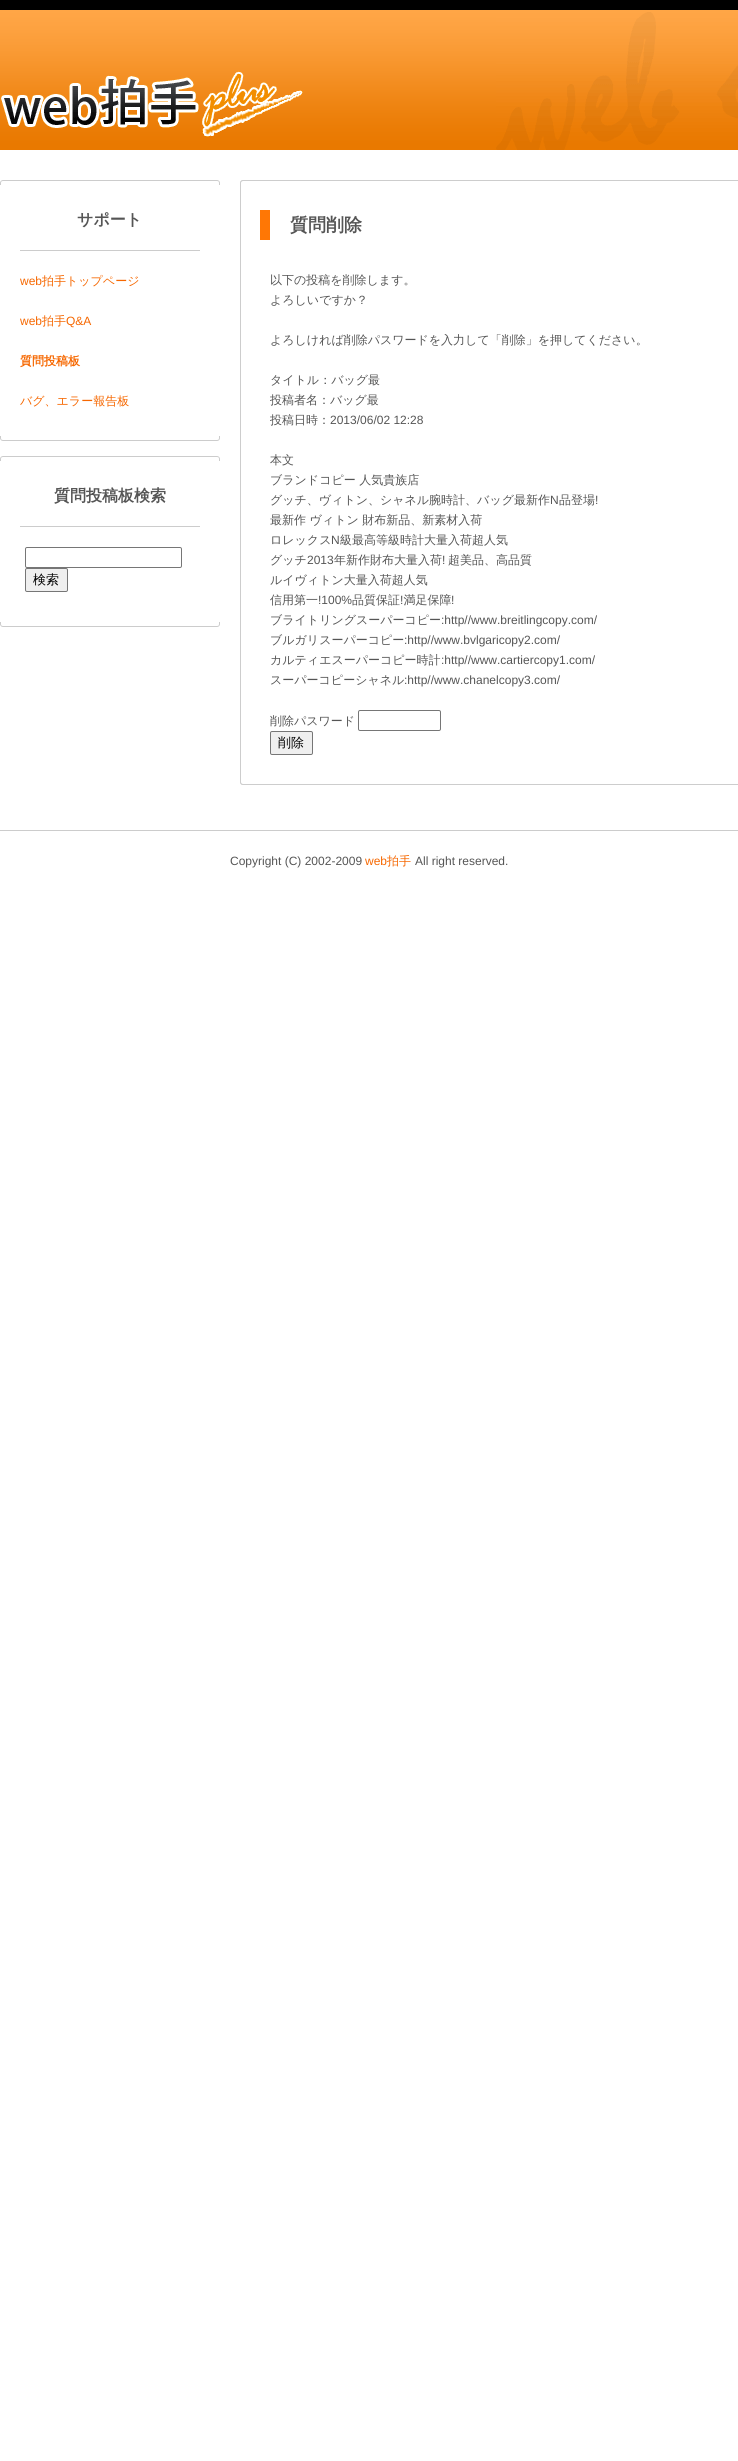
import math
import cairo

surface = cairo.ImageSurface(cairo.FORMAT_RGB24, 738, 2461)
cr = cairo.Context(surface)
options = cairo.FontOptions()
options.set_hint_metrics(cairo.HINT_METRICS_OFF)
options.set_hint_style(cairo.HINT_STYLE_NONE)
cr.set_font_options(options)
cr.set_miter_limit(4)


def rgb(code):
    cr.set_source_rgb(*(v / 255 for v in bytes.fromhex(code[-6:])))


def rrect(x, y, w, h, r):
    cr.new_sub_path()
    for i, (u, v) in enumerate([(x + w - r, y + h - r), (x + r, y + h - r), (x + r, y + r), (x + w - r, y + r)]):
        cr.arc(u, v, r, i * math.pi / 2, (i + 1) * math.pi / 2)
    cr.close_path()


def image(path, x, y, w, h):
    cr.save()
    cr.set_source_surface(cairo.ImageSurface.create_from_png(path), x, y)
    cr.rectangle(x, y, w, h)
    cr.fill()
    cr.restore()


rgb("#ffffff")
cr.paint()
image("img/1.png", 0, 0, 738, 150)
image("img/2.png", 496, 12, 242, 138)
image("img/3.png", 1, 71, 302, 66)
image("img/4.png", 0, 180, 220, 5)
rgb("#cccccc")
cr.rectangle(20, 250, 180, 1)
cr.fill()
image("img/5.png", 0, 436, 220, 5)
image("img/4.png", 0, 456, 220, 5)
cr.rectangle(20, 526, 180, 1)
cr.fill()
rrect(25.5, 547.5, 156, 20, 1.5)
rgb("#767676")
cr.set_line_width(1)
cr.stroke()
rgb("#efefef")
rrect(25.5, 568.5, 42, 23, 1.5)
cr.fill_preserve()
rgb("#767676")
cr.stroke()
image("img/5.png", 0, 622, 220, 5)
image("img/6.png", 240, 180, 498, 5)
rgb("#cdcdcd")
cr.rectangle(240, 185, 1, 595)
cr.fill()
rgb("#ff7705")
cr.rectangle(260, 210, 10, 30)
cr.fill()
rrect(358.5, 710.5, 82, 20, 1.5)
rgb("#767676")
cr.stroke()
rgb("#efefef")
rrect(270.5, 731.5, 42, 23, 1.5)
cr.fill_preserve()
rgb("#767676")
cr.stroke()
image("img/7.png", 240, 780, 498, 5)
rgb("#cccccc")
cr.rectangle(0, 830, 738, 1)
cr.fill()
cr.select_font_face("WenQuanYi Zen Hei", cairo.FONT_SLANT_NORMAL, cairo.FONT_WEIGHT_BOLD)
cr.set_font_size(16)
rgb("#555555")
cr.move_to(77, 225)
cr.show_text("サポート")
cr.select_font_face("Liberation Sans")
cr.set_font_size(12)
rgb("#f66700")
cr.move_to(20, 285)
cr.show_text("web")
cr.select_font_face("WenQuanYi Zen Hei Medium")
cr.move_to(42, 285)
cr.show_text("拍手トップページ")
cr.select_font_face("Liberation Sans")
cr.move_to(20, 325)
cr.show_text("web")
cr.select_font_face("WenQuanYi Zen Hei Medium")
cr.move_to(42, 325)
cr.show_text("拍手")
cr.select_font_face("Liberation Sans")
cr.move_to(66, 325)
cr.show_text("Q&A")
cr.select_font_face("WenQuanYi Zen Hei", cairo.FONT_SLANT_NORMAL, cairo.FONT_WEIGHT_BOLD)
cr.move_to(20, 365)
cr.show_text("質問投稿板")
cr.select_font_face("WenQuanYi Zen Hei Medium")
cr.move_to(20, 405)
cr.show_text("バグ、エラー報告板")
cr.select_font_face("WenQuanYi Zen Hei", cairo.FONT_SLANT_NORMAL, cairo.FONT_WEIGHT_BOLD)
cr.set_font_size(16)
rgb("#555555")
cr.move_to(54, 501)
cr.show_text("質問投稿板検索")
cr.select_font_face("WenQuanYi Zen Hei Medium")
cr.set_font_size(13)
rgb("#000000")
cr.move_to(33, 584)
cr.show_text("検索")
cr.select_font_face("WenQuanYi Zen Hei", cairo.FONT_SLANT_NORMAL, cairo.FONT_WEIGHT_BOLD)
cr.set_font_size(18)
rgb("#555555")
cr.move_to(290, 231)
cr.show_text("質問削除")
cr.select_font_face("WenQuanYi Zen Hei Medium")
cr.set_font_size(12)
for x, y, s in [
    (270, 284, "以下の投稿を削除します。"),
    (270, 304, "よろしいですか？"),
    (270, 344, "よろしければ削除パスワードを入力して「削除」を押してください。"),
    (270, 384, "タイトル：バッグ最"),
    (270, 404, "投稿者名：バッグ最"),
    (270, 424, "投稿日時："),
]:
    cr.move_to(x, y)
    cr.show_text(s)
cr.select_font_face("Liberation Sans")
cr.move_to(330, 424)
cr.show_text("2013/06/02 12:28")
cr.select_font_face("WenQuanYi Zen Hei Medium")
for x, y, s in [
    (270, 464, "本文"),
    (270, 484, "ブランドコピー 人気貴族店"),
    (270, 504, "グッチ、ヴィトン、シャネル腕時計、バッグ最新作"),
]:
    cr.move_to(x, y)
    cr.show_text(s)
cr.select_font_face("Liberation Sans")
cr.move_to(550, 504)
cr.show_text("N")
cr.select_font_face("WenQuanYi Zen Hei Medium")
cr.move_to(559, 504)
cr.show_text("品登場")
cr.select_font_face("Liberation Sans")
cr.move_to(595, 504)
cr.show_text("!")
cr.select_font_face("WenQuanYi Zen Hei Medium")
cr.move_to(270, 524)
cr.show_text("最新作 ヴィトン 財布新品、新素材入荷")
cr.move_to(270, 544)
cr.show_text("ロレックス")
cr.select_font_face("Liberation Sans")
cr.move_to(331, 544)
cr.show_text("N")
cr.select_font_face("WenQuanYi Zen Hei Medium")
cr.move_to(340, 544)
cr.show_text("級最高等級時計大量入荷超人気")
cr.move_to(270, 564)
cr.show_text("グッチ")
cr.select_font_face("Liberation Sans")
cr.move_to(307, 564)
cr.show_text("2013")
cr.select_font_face("WenQuanYi Zen Hei Medium")
cr.move_to(334, 564)
cr.show_text("年新作財布大量入荷")
cr.select_font_face("Liberation Sans")
cr.move_to(442, 564)
cr.show_text("!")
cr.select_font_face("WenQuanYi Zen Hei Medium")
for x, y, s in [
    (448, 564, "超美品、高品質"),
    (270, 584, "ルイヴィトン大量入荷超人気"),
    (270, 604, "信用第一"),
]:
    cr.move_to(x, y)
    cr.show_text(s)
cr.select_font_face("Liberation Sans")
cr.move_to(318, 604)
cr.show_text("!100%")
cr.select_font_face("WenQuanYi Zen Hei Medium")
cr.move_to(352, 604)
cr.show_text("品質保証 満足保障")
cr.select_font_face("Liberation Sans")
cr.move_to(400, 604)
cr.show_text("!")
cr.move_to(451, 604)
cr.show_text("!")
cr.select_font_face("WenQuanYi Zen Hei Medium")
cr.move_to(270, 624)
cr.show_text("ブライトリングスーパーコピー")
cr.select_font_face("Liberation Sans")
cr.move_to(441, 624)
cr.show_text(":http//www.breitlingcopy.com/")
cr.select_font_face("WenQuanYi Zen Hei Medium")
cr.move_to(270, 644)
cr.show_text("ブルガリスーパーコピー")
cr.select_font_face("Liberation Sans")
cr.move_to(404, 644)
cr.show_text(":http//www.bvlgaricopy2.com/")
cr.select_font_face("WenQuanYi Zen Hei Medium")
cr.move_to(270, 664)
cr.show_text("カルティエスーパーコピー時計")
cr.select_font_face("Liberation Sans")
cr.move_to(441, 664)
cr.show_text(":http//www.cartiercopy1.com/")
cr.select_font_face("WenQuanYi Zen Hei Medium")
cr.move_to(270, 684)
cr.show_text("スーパーコピーシャネル")
cr.select_font_face("Liberation Sans")
cr.move_to(404, 684)
cr.show_text(":http//www.chanelcopy3.com/")
cr.select_font_face("WenQuanYi Zen Hei Medium")
cr.move_to(270, 725)
cr.show_text("削除パスワード")
cr.set_font_size(13)
rgb("#000000")
cr.move_to(278, 747)
cr.show_text("削除")
cr.select_font_face("Liberation Sans")
cr.set_font_size(12)
rgb("#555555")
cr.move_to(230, 865)
cr.show_text("Copyright (C) 2002-2009")
rgb("#f66700")
cr.move_to(365, 865)
cr.show_text("web")
cr.select_font_face("WenQuanYi Zen Hei Medium")
cr.move_to(387, 865)
cr.show_text("拍手")
cr.select_font_face("Liberation Sans")
rgb("#555555")
cr.move_to(415, 865)
cr.show_text("All right reserved.")
surface.write_to_png("page.png")
